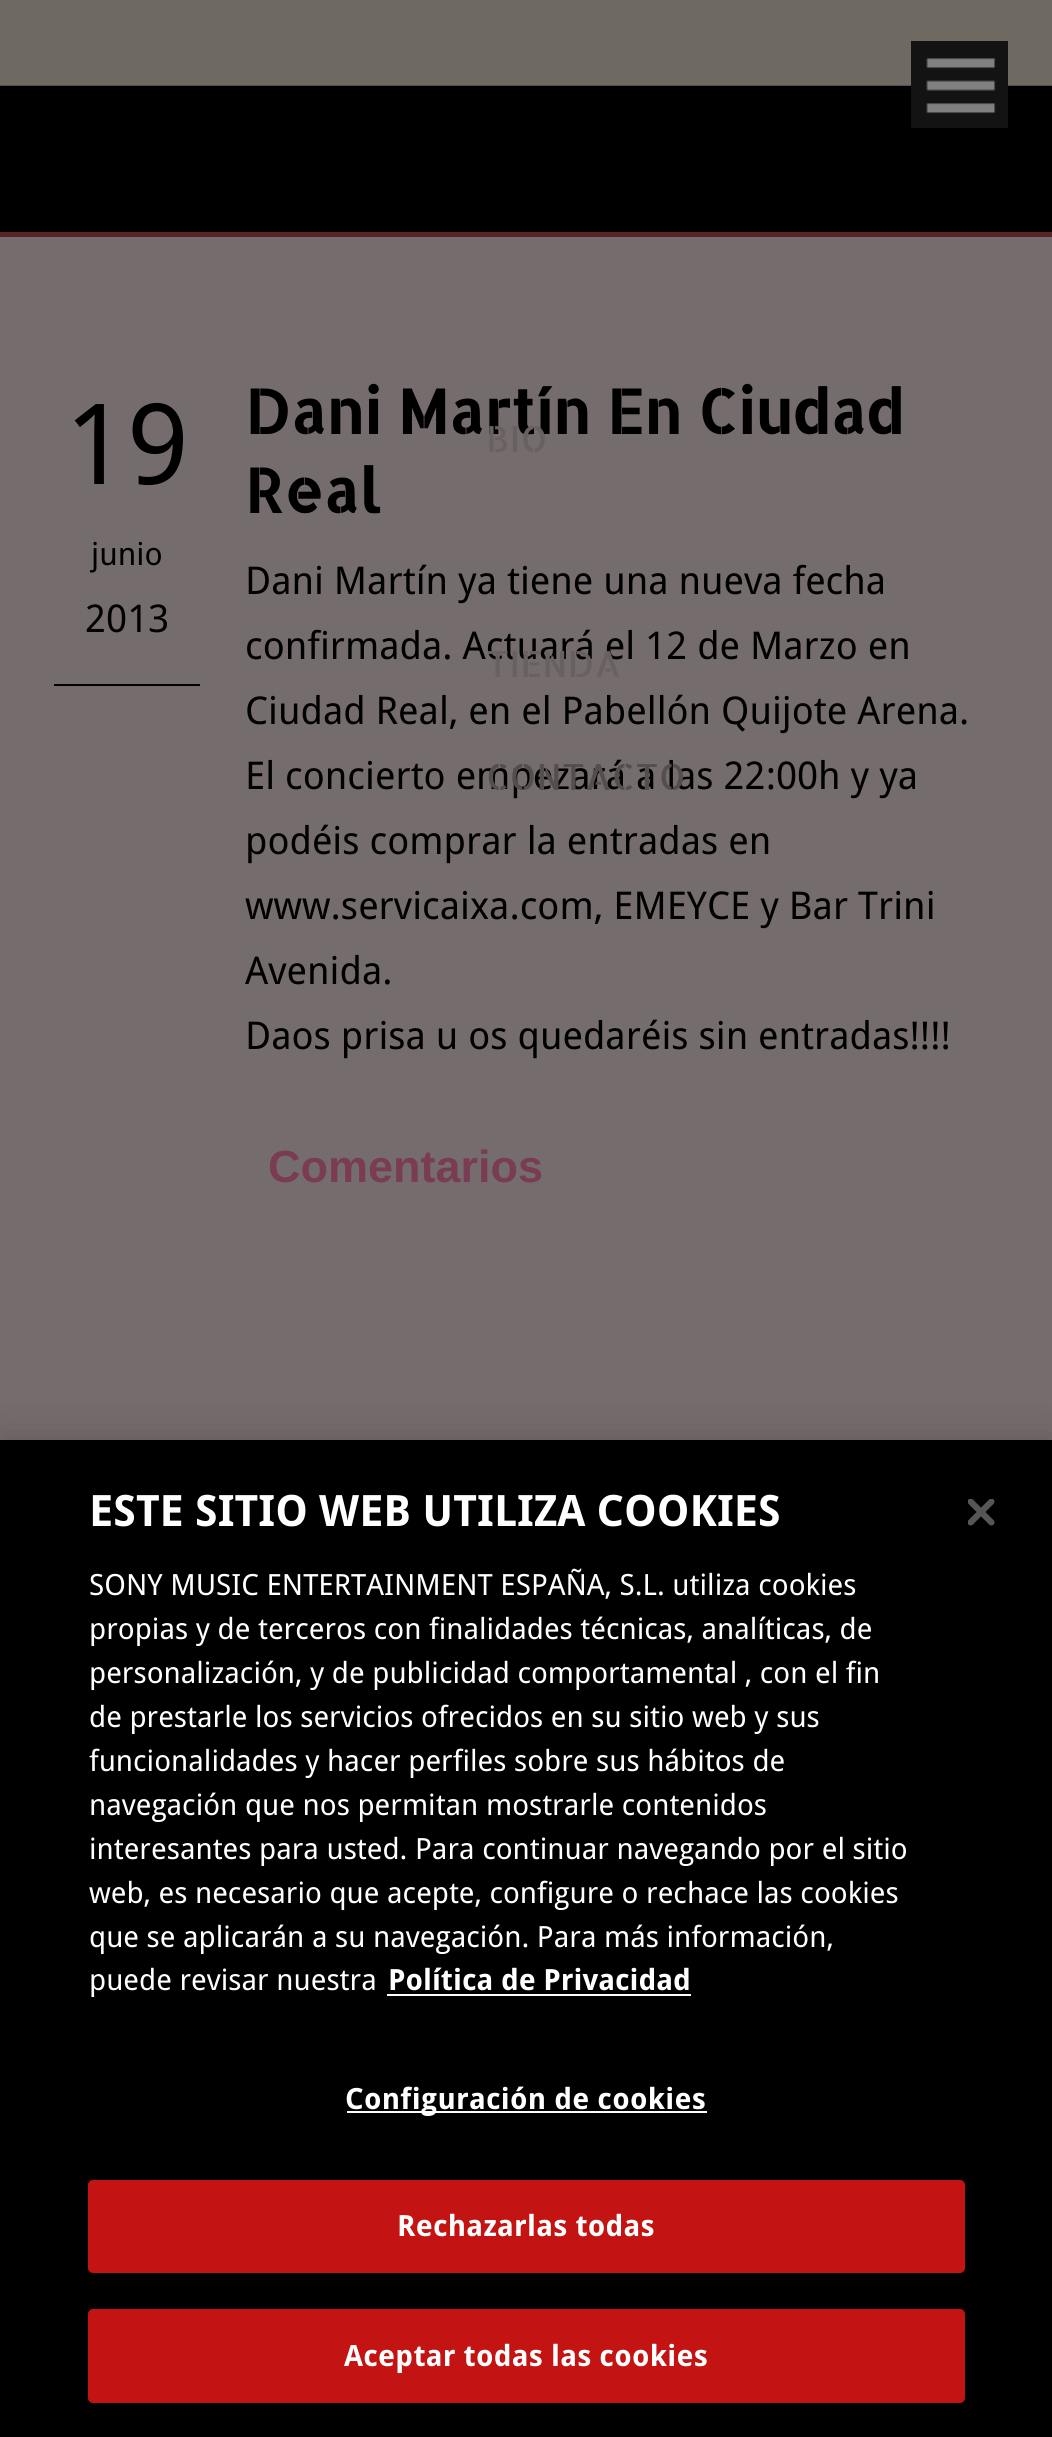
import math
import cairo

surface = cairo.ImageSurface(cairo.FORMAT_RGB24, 1052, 2437)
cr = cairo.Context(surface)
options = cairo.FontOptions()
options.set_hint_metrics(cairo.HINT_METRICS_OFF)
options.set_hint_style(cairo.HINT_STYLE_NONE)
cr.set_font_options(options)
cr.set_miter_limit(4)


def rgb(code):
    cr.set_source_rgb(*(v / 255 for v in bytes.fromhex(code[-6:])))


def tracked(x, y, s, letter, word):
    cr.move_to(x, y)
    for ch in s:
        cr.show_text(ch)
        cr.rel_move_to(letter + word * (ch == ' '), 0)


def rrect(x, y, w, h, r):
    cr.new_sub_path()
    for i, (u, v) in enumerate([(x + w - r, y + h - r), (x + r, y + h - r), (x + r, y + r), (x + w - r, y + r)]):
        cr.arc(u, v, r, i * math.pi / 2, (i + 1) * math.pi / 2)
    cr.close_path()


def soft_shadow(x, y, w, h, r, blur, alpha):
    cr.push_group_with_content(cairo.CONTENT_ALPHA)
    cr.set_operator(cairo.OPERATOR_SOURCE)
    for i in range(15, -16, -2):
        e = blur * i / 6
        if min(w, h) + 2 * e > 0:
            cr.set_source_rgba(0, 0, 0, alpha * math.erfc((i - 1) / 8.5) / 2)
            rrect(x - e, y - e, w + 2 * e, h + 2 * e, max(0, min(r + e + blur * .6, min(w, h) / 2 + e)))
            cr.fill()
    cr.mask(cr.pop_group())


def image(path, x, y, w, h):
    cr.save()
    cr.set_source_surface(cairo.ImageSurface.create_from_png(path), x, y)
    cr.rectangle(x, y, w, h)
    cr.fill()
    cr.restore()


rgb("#6e6a62")
cr.paint()
for x, y, w, h, color in [
    (0, 85, 1052, 1, "#504f4a"),
    (0, 237, 1052, 1203, "#756c6d"),
    (54, 684, 146, 2, "#000000"),
    (0, 86, 1052, 146, "#000000"),
    (0, 232, 1052, 5, "#582328"),
    (911, 41, 97, 87, "#131313"),
]:
    rgb(color)
    cr.rectangle(x, y, w, h)
    cr.fill()
image("img/1.png", 926, 58, 70, 56)
rgb("#000000")
soft_shadow(0, 1440, 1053, 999, 0, 20, 0.2)
for x, y, w, h, color in [
    (0, 1440, 1052, 997, "#000000"),
    (387, 1994, 304, 2, "#ffffff"),
    (347, 2111, 360, 2, "#ffffff"),
]:
    rgb(color)
    cr.rectangle(x, y, w, h)
    cr.fill()
rgb("#c31313")
rrect(89, 2181, 875, 91, 4)
cr.fill_preserve()
cr.stroke()
rrect(89, 2310, 875, 92, 4)
cr.fill_preserve()
cr.stroke()
image("img/2.png", 968, 1499, 27, 27)
cr.select_font_face("Droid Sans")
cr.set_font_size(112)
rgb("#000000")
cr.move_to(65, 484)
cr.show_text("19")
cr.set_font_size(31.5)
cr.move_to(91, 565)
cr.show_text("junio")
cr.set_font_size(38.25)
cr.move_to(85, 632)
cr.show_text("2013")
cr.select_font_face("Allerta Stencil", cairo.FONT_SLANT_NORMAL, cairo.FONT_WEIGHT_BOLD)
cr.set_font_size(60.75)
cr.move_to(245, 434)
cr.show_text("Dani Martín En Ciudad")
cr.move_to(245, 513)
cr.show_text("Real")
cr.select_font_face("Droid Sans")
cr.set_font_size(38.25)
for x, y, s in [
    (245, 594, "Dani Martín ya tiene una nueva fecha"),
    (245, 659, "confirmada. Actuará el 12 de Marzo en"),
    (245, 724, "Ciudad Real, en el Pabellón Quijote Arena."),
    (245, 789, "El concierto empezará a las 22:00h y ya"),
    (245, 854, "podéis comprar la entradas en"),
    (245, 919, "www.servicaixa.com, EMEYCE y Bar Trini"),
    (245, 984, "Avenida."),
    (245, 1049, "Daos prisa u os quedaréis sin entradas!!!!"),
]:
    cr.move_to(x, y)
    cr.show_text(s)
cr.select_font_face("Liberation Sans", cairo.FONT_SLANT_NORMAL, cairo.FONT_WEIGHT_BOLD)
cr.set_font_size(45)
rgb("#793c53")
cr.move_to(268, 1182)
cr.show_text("Comentarios")
cr.select_font_face("Allerta Stencil")
cr.set_font_size(36)
rgb("#686061")
cr.move_to(486, 452)
cr.show_text("BIO")
cr.move_to(486, 677)
cr.show_text("TIENDA")
rgb("#554e4f")
cr.move_to(486, 790)
cr.show_text("CONTACTO")
cr.select_font_face("Droid Sans", cairo.FONT_SLANT_NORMAL, cairo.FONT_WEIGHT_BOLD)
cr.set_font_size(43.25)
rgb("#ffffff")
cr.move_to(89, 1526)
cr.show_text("ESTE SITIO WEB UTILIZA COOKIES")
cr.select_font_face("Droid Sans")
cr.set_font_size(29.25)
for x, y, s in [
    (89, 1595, "SONY MUSIC ENTERTAINMENT ESPAÑA, S.L. utiliza cookies"),
    (89, 1639, "propias y de terceros con finalidades técnicas, analíticas, de"),
    (89, 1683, "personalización, y de publicidad comportamental , con el fin"),
    (89, 1727, "de prestarle los servicios ofrecidos en su sitio web y sus"),
    (89, 1771, "funcionalidades y hacer perfiles sobre sus hábitos de"),
    (89, 1815, "navegación que nos permitan mostrarle contenidos"),
    (89, 1859, "interesantes para usted. Para continuar navegando por el sitio"),
    (89, 1903, "web, es necesario que acepte, configure o rechace las cookies"),
    (89, 1947, "que se aplicarán a su navegación. Para más información,"),
    (89, 1990, "puede revisar nuestra"),
]:
    cr.move_to(x, y)
    cr.show_text(s)
cr.select_font_face("Droid Sans", cairo.FONT_SLANT_NORMAL, cairo.FONT_WEIGHT_BOLD)
cr.move_to(388, 1990)
cr.show_text("Política de Privacidad")
for x, y, s in [
    (345, 2109, "Configuración de cookies"),
    (397, 2236, "Rechazarlas todas"),
    (344, 2366, "Aceptar todas las cookies"),
]:
    tracked(x, y, s, 0.25, 0)
surface.write_to_png("page.png")
